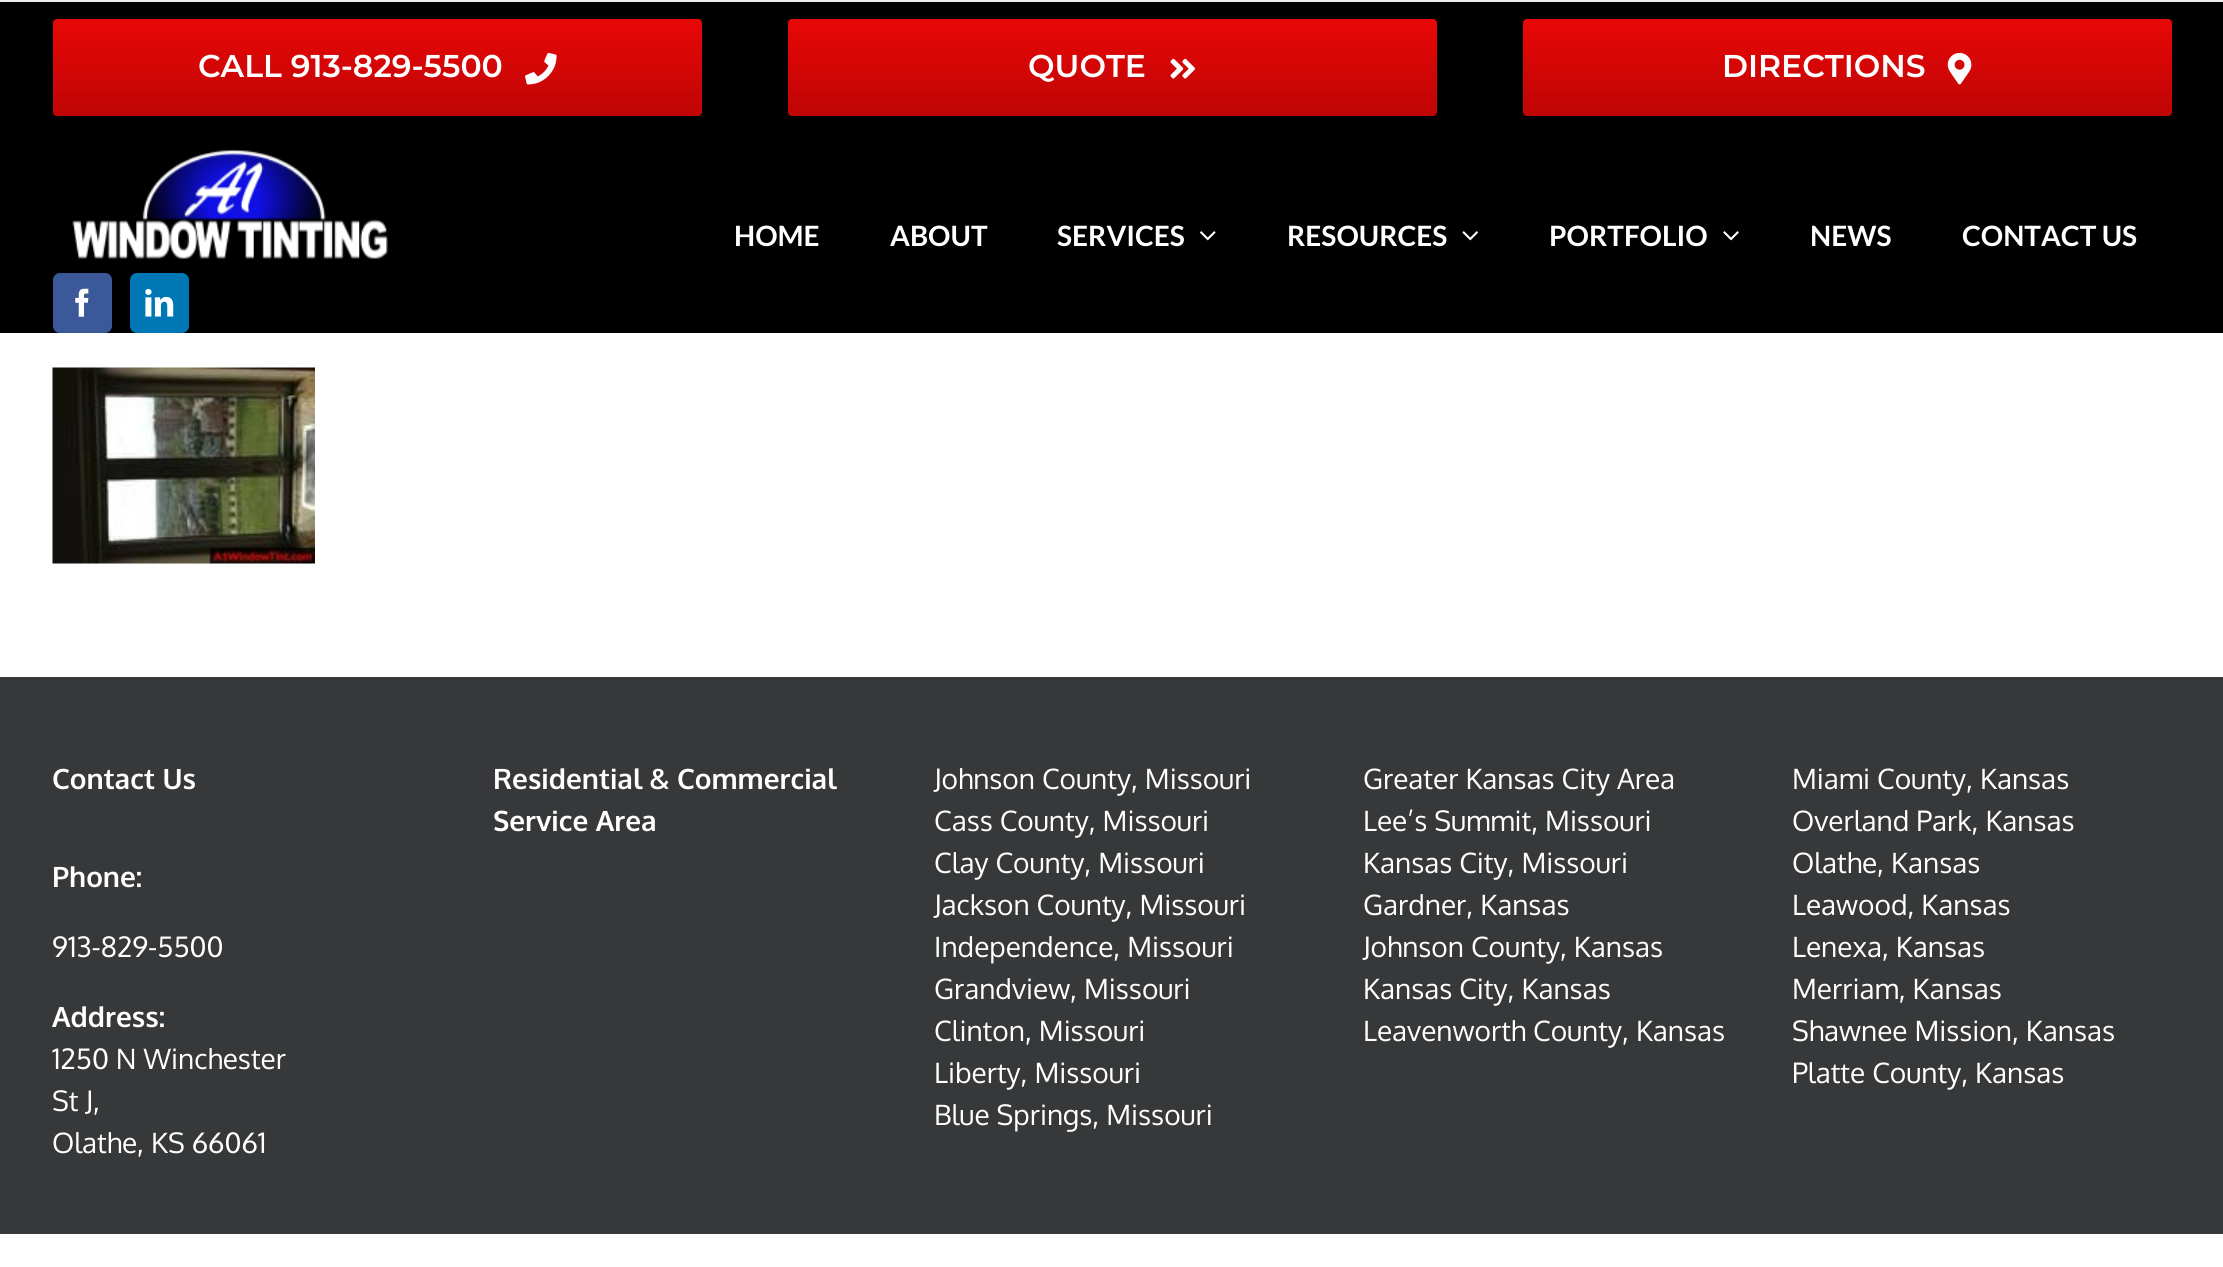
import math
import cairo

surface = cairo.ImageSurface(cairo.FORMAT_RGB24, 2223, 1267)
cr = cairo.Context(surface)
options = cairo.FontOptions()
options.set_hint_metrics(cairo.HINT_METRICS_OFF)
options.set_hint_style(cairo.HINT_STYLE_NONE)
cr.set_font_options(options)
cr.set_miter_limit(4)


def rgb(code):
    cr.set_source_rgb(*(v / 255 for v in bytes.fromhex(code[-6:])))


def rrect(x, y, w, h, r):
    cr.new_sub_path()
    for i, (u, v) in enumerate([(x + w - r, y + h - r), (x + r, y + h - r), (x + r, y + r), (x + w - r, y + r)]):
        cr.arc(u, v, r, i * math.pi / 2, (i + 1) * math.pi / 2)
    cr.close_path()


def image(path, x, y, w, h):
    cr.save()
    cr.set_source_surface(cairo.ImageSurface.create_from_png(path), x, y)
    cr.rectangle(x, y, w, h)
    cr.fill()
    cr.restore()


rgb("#ffffff")
cr.paint()
rgb("#000000")
cr.rectangle(0, 2, 2223, 331)
cr.fill()
rgb("#ededed")
cr.rectangle(0, 0, 2223, 2)
cr.fill()
gradient = cairo.LinearGradient(377, 19, 377, 116)
gradient.add_color_stop_rgba(0, 0.91, 0.027, 0.027, 1)
gradient.add_color_stop_rgba(1, 0.749, 0.02, 0.02, 1)
cr.set_source(gradient)
rrect(53, 19, 649, 97, 4)
cr.fill()
image("img/1.png", 525, 52, 32, 33)
gradient = cairo.LinearGradient(1112, 19, 1112, 116)
gradient.add_color_stop_rgba(0, 0.91, 0.027, 0.027, 1)
gradient.add_color_stop_rgba(1, 0.749, 0.02, 0.02, 1)
cr.set_source(gradient)
rrect(788, 19, 649, 97, 4)
cr.fill()
image("img/2.png", 1170, 58, 25, 21)
gradient = cairo.LinearGradient(1847, 19, 1847, 116)
gradient.add_color_stop_rgba(0, 0.91, 0.027, 0.027, 1)
gradient.add_color_stop_rgba(1, 0.749, 0.02, 0.02, 1)
cr.set_source(gradient)
rrect(1523, 19, 649, 97, 4)
cr.fill()
image("img/3.png", 1947, 52, 25, 33)
image("img/4.png", 72, 149, 316, 110)
rgb("#3b5998")
rrect(54, 274, 57, 58, 6)
cr.fill_preserve()
cr.stroke()
image("img/5.png", 75, 288, 14, 29)
rgb("#0077b5")
rrect(131, 274, 57, 58, 6)
cr.fill_preserve()
cr.stroke()
image("img/6.png", 145, 289, 29, 28)
image("img/7.png", 1200, 231, 16, 10)
image("img/8.png", 1462, 231, 16, 10)
image("img/9.png", 1723, 231, 16, 10)
image("img/10.png", 52, 367, 263, 197)
rgb("#363839")
cr.rectangle(0, 677, 2223, 557)
cr.fill()
cr.select_font_face("Montserrat Thin")
cr.set_font_size(31.5)
rgb("#ffffff")
for x, y, s in [
    (198, 77, "CALL 913-829-5500"),
    (1028, 77, "QUOTE"),
    (1722, 77, "DIRECTIONS"),
]:
    cr.move_to(x, y)
    cr.show_text(s)
cr.select_font_face("Lato", cairo.FONT_SLANT_NORMAL, cairo.FONT_WEIGHT_BOLD)
cr.set_font_size(28)
for x, y, s in [
    (734, 246, "HOME"),
    (890, 246, "ABOUT"),
    (1057, 246, "SERVICES"),
    (1287, 246, "RESOURCES"),
    (1549, 246, "PORTFOLIO"),
    (1810, 246, "NEWS"),
    (1962, 246, "CONTACT US"),
]:
    cr.move_to(x, y)
    cr.show_text(s)
cr.select_font_face("Oxygen", cairo.FONT_SLANT_NORMAL, cairo.FONT_WEIGHT_BOLD)
cr.move_to(52, 789)
cr.show_text("Contact Us")
cr.move_to(52, 887)
cr.show_text("Phone:")
cr.select_font_face("Oxygen")
cr.move_to(52, 957)
cr.show_text("913-829-5500")
cr.select_font_face("Oxygen", cairo.FONT_SLANT_NORMAL, cairo.FONT_WEIGHT_BOLD)
cr.move_to(52, 1027)
cr.show_text("Address:")
cr.select_font_face("Oxygen")
for x, y, s in [
    (52, 1069, "1250 N Winchester"),
    (52, 1111, "St J,"),
    (52, 1153, "Olathe, KS 66061"),
]:
    cr.move_to(x, y)
    cr.show_text(s)
cr.select_font_face("Oxygen", cairo.FONT_SLANT_NORMAL, cairo.FONT_WEIGHT_BOLD)
cr.move_to(493, 789)
cr.show_text("Residential & Commercial")
cr.move_to(493, 831)
cr.show_text("Service Area")
cr.select_font_face("Oxygen")
for x, y, s in [
    (934, 789, "Johnson County, Missouri"),
    (934, 831, "Cass County, Missouri"),
    (934, 873, "Clay County, Missouri"),
    (934, 915, "Jackson County, Missouri"),
    (934, 957, "Independence, Missouri"),
    (934, 999, "Grandview, Missouri"),
    (934, 1041, "Clinton, Missouri"),
    (934, 1083, "Liberty, Missouri"),
    (934, 1125, "Blue Springs, Missouri"),
    (1363, 789, "Greater Kansas City Area"),
    (1363, 831, "Lee’s Summit, Missouri"),
    (1363, 873, "Kansas City, Missouri"),
    (1363, 915, "Gardner, Kansas"),
    (1363, 957, "Johnson County, Kansas"),
    (1363, 999, "Kansas City, Kansas"),
    (1363, 1041, "Leavenworth County, Kansas"),
    (1792, 789, "Miami County, Kansas"),
    (1792, 831, "Overland Park, Kansas"),
    (1792, 873, "Olathe, Kansas"),
    (1792, 915, "Leawood, Kansas"),
    (1792, 957, "Lenexa, Kansas"),
    (1792, 999, "Merriam, Kansas"),
    (1792, 1041, "Shawnee Mission, Kansas"),
    (1792, 1083, "Platte County, Kansas"),
]:
    cr.move_to(x, y)
    cr.show_text(s)
surface.write_to_png("page.png")
